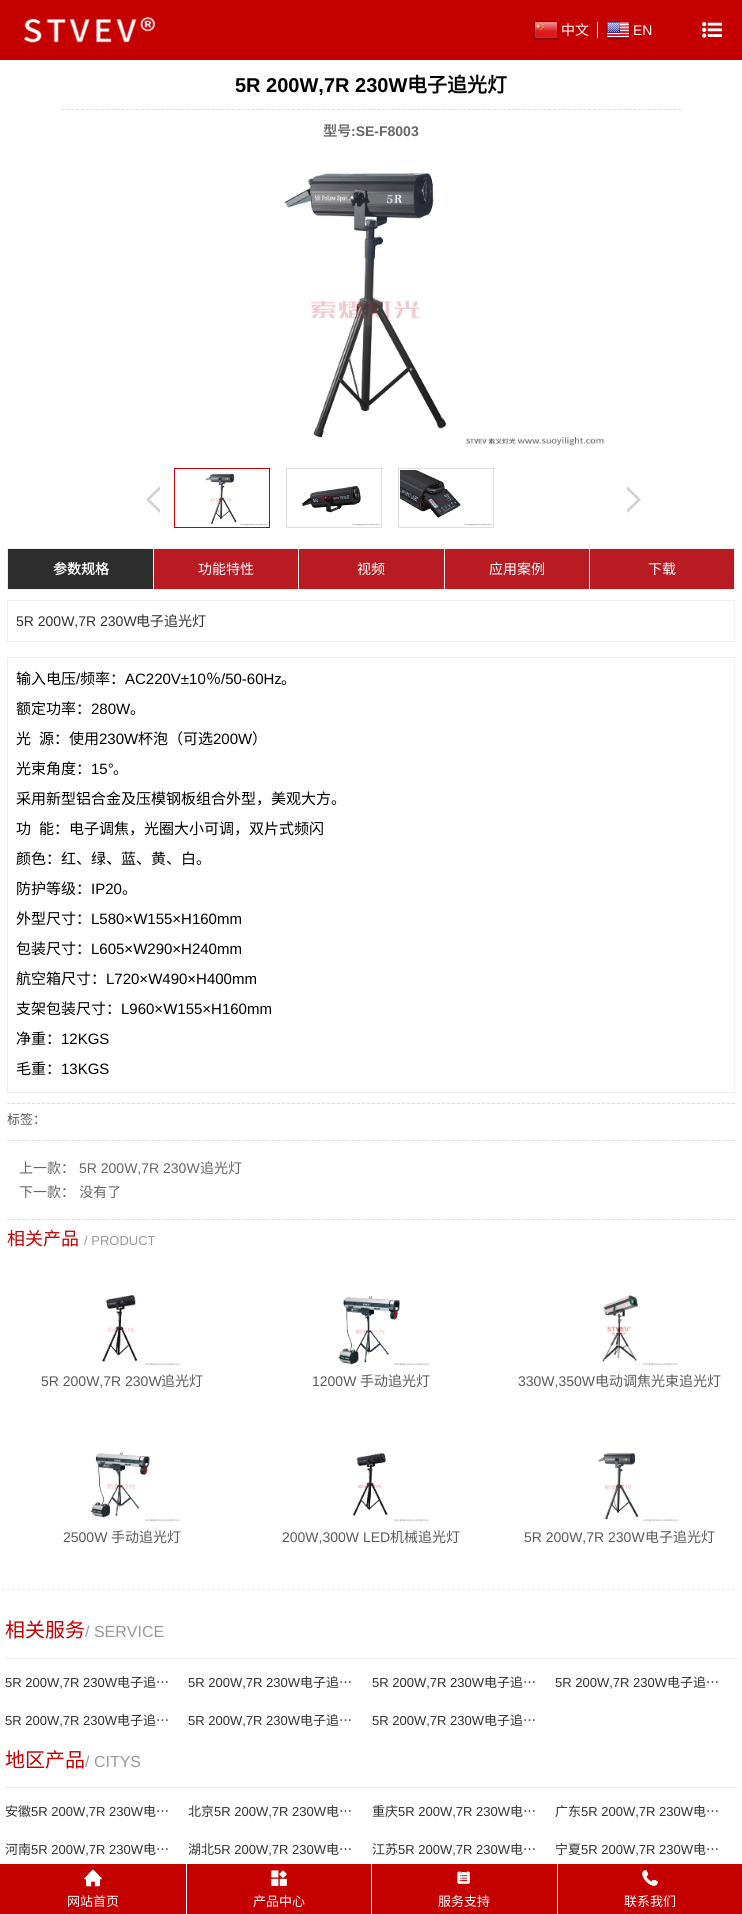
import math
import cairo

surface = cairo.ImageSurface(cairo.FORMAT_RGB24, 742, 1914)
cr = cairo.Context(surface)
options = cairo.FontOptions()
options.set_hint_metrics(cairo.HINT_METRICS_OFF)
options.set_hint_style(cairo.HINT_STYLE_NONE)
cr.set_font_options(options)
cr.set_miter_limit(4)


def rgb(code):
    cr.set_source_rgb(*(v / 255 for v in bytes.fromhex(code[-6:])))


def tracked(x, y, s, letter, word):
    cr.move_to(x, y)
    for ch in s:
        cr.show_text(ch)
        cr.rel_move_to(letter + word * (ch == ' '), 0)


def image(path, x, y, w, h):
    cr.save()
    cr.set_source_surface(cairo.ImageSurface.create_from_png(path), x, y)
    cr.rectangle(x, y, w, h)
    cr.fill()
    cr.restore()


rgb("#ffffff")
cr.paint()
rgb("#c40000")
cr.rectangle(0, 0, 742, 60)
cr.fill()
image("img/1.png", 24, 17, 132, 26)
image("img/2.png", 534, 21, 24, 19)
rgb("#ffffff")
cr.rectangle(597, 22, 1, 16)
cr.fill()
image("img/3.png", 606, 21, 24, 19)
image("img/4.png", 702, 22, 20, 16)
cr.new_path()
cr.move_to(61, 109.5)
cr.line_to(681, 109.5)
rgb("#dddddd")
cr.set_line_width(1)
cr.set_dash([3, 2.02])
cr.stroke()
image("img/5.png", 284, 173, 320, 273)
image("img/6.png", 146, 486, 14, 27)
cr.rectangle(174.5, 468.5, 95, 59)
rgb("#c40000")
cr.set_dash([])
cr.stroke()
image("img/7.png", 205, 473, 62, 53)
cr.rectangle(286.5, 468.5, 95, 59)
rgb("#dddddd")
cr.stroke()
image("img/8.png", 301, 485, 79, 41)
cr.rectangle(398.5, 468.5, 95, 59)
cr.stroke()
image("img/9.png", 400, 470, 92, 56)
image("img/10.png", 627, 486, 14, 27)
cr.rectangle(7.5, 548.5, 727, 41)
rgb("#eeeeee")
cr.stroke()
for x, y, w, h, color in [
    (8, 549, 145, 40, "#2d2d2d"),
    (154, 549, 144, 40, "#b81c22"),
    (153, 549, 1, 40, "#eeeeee"),
    (299, 549, 145, 40, "#b81c22"),
    (298, 549, 1, 40, "#eeeeee"),
    (445, 549, 144, 40, "#b81c22"),
    (444, 549, 1, 40, "#eeeeee"),
    (590, 549, 144, 40, "#b81c22"),
    (589, 549, 1, 40, "#eeeeee"),
]:
    rgb(color)
    cr.rectangle(x, y, w, h)
    cr.fill()
cr.rectangle(7.5, 600.5, 727, 41)
cr.stroke()
cr.rectangle(7.5, 657.5, 727, 435)
cr.stroke()
cr.new_path()
cr.move_to(7, 1103.5)
cr.line_to(735, 1103.5)
rgb("#dddddd")
cr.set_dash([3, 2])
cr.stroke()
cr.new_path()
cr.move_to(7, 1140.5)
cr.line_to(735, 1140.5)
cr.stroke()
cr.new_path()
cr.move_to(7, 1219.5)
cr.line_to(735, 1219.5)
cr.stroke()
cr.new_path()
cr.move_to(-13, 1589.5)
cr.line_to(735, 1589.5)
rgb("#eeeeee")
cr.stroke()
image("img/11.png", 102, 1295, 78, 71)
image("img/12.png", 338, 1295, 91, 71)
image("img/13.png", 602, 1295, 76, 71)
image("img/14.png", 90, 1452, 90, 70)
image("img/15.png", 352, 1452, 77, 70)
image("img/16.png", 598, 1452, 80, 70)
for x, y, w, h, color in [
    (5, 1658, 732, 1, "#eeeeee"),
    (5, 1787, 732, 1, "#eeeeee"),
    (0, 1864, 742, 50, "#c40000"),
]:
    rgb(color)
    cr.rectangle(x, y, w, h)
    cr.fill()
image("img/17.png", 84, 1869, 18, 18)
rgb("#ffffff")
cr.rectangle(186, 1864, 1, 50)
cr.fill()
image("img/18.png", 271, 1870, 16, 16)
cr.rectangle(371, 1864, 1, 50)
cr.fill()
image("img/19.png", 457, 1871, 13, 13)
cr.rectangle(557, 1864, 1, 50)
cr.fill()
image("img/20.png", 642, 1870, 16, 16)
cr.select_font_face("Noto Sans CJK SC")
cr.set_font_size(14)
cr.move_to(561, 35)
cr.show_text("中文")
cr.select_font_face("Liberation Sans")
cr.move_to(633, 35)
cr.show_text("EN")
cr.select_font_face("Liberation Sans", cairo.FONT_SLANT_NORMAL, cairo.FONT_WEIGHT_BOLD)
cr.set_font_size(20)
rgb("#000000")
cr.move_to(235, 92)
cr.show_text("5R 200W,7R 230W")
cr.select_font_face("Noto Sans CJK SC", cairo.FONT_SLANT_NORMAL, cairo.FONT_WEIGHT_BOLD)
cr.move_to(407, 92)
cr.show_text("电子追光灯")
cr.set_font_size(14)
rgb("#666666")
cr.move_to(323, 136)
cr.show_text("型号")
cr.select_font_face("Liberation Sans", cairo.FONT_SLANT_NORMAL, cairo.FONT_WEIGHT_BOLD)
cr.move_to(351, 136)
cr.show_text(":SE-F8003")
cr.select_font_face("Noto Sans CJK SC", cairo.FONT_SLANT_NORMAL, cairo.FONT_WEIGHT_BOLD)
rgb("#ffffff")
cr.move_to(53, 574)
cr.show_text("参数规格")
cr.select_font_face("Noto Sans CJK SC")
for x, y, s in [
    (198, 574, "功能特性"),
    (357, 574, "视频"),
    (489, 574, "应用案例"),
    (648, 574, "下载"),
]:
    cr.move_to(x, y)
    cr.show_text(s)
cr.select_font_face("Liberation Sans")
rgb("#313131")
cr.move_to(16, 626)
cr.show_text("5R 200W,7R 230W")
cr.select_font_face("Noto Sans CJK SC")
cr.move_to(136, 626)
cr.show_text("电子追光灯")
cr.set_font_size(15)
rgb("#000000")
cr.move_to(16, 684)
cr.show_text("输入电压")
cr.select_font_face("Liberation Sans")
cr.move_to(76, 684)
cr.show_text("/")
cr.select_font_face("Noto Sans CJK SC")
cr.move_to(80, 684)
cr.show_text("频率：")
cr.select_font_face("Liberation Sans")
cr.move_to(125, 684)
cr.show_text("AC220V±10")
cr.select_font_face("Noto Sans CJK SC")
cr.move_to(206, 684)
cr.show_text("％")
cr.select_font_face("Liberation Sans")
cr.move_to(221, 684)
cr.show_text("/50-60Hz")
cr.select_font_face("Noto Sans CJK SC")
cr.move_to(281, 684)
cr.show_text("。")
cr.move_to(16, 714)
cr.show_text("额定功率：")
cr.select_font_face("Liberation Sans")
cr.move_to(91, 714)
cr.show_text("280W")
cr.select_font_face("Noto Sans CJK SC")
for x, y, s in [
    (130, 714, "。"),
    (16, 744, "光"),
    (39, 744, "源：使用"),
]:
    cr.move_to(x, y)
    cr.show_text(s)
cr.select_font_face("Liberation Sans")
cr.move_to(99, 744)
cr.show_text("230W")
cr.select_font_face("Noto Sans CJK SC")
cr.move_to(138, 744)
cr.show_text("杯泡（可选")
cr.select_font_face("Liberation Sans")
cr.move_to(213, 744)
cr.show_text("200W")
cr.select_font_face("Noto Sans CJK SC")
cr.move_to(252, 744)
cr.show_text("）")
cr.move_to(16, 774)
cr.show_text("光束角度：")
cr.select_font_face("Liberation Sans")
cr.move_to(91, 774)
cr.show_text("15°")
cr.select_font_face("Noto Sans CJK SC")
for x, y, s in [
    (113, 774, "。"),
    (16, 804, "采用新型铝合金及压模钢板组合外型，美观大方。"),
    (16, 834, "功"),
    (39, 834, "能：电子调焦，光圈大小可调，双片式频闪"),
    (16, 864, "颜色：红、绿、蓝、黄、白。"),
    (16, 894, "防护等级："),
]:
    cr.move_to(x, y)
    cr.show_text(s)
cr.select_font_face("Liberation Sans")
cr.move_to(91, 894)
cr.show_text("IP20")
cr.select_font_face("Noto Sans CJK SC")
cr.move_to(122, 894)
cr.show_text("。")
cr.move_to(16, 924)
cr.show_text("外型尺寸：")
cr.select_font_face("Liberation Sans")
cr.move_to(91, 924)
cr.show_text("L580×W155×H160mm")
cr.select_font_face("Noto Sans CJK SC")
cr.move_to(16, 954)
cr.show_text("包装尺寸：")
cr.select_font_face("Liberation Sans")
cr.move_to(91, 954)
cr.show_text("L605×W290×H240mm")
cr.select_font_face("Noto Sans CJK SC")
cr.move_to(16, 984)
cr.show_text("航空箱尺寸：")
cr.select_font_face("Liberation Sans")
cr.move_to(106, 984)
cr.show_text("L720×W490×H400mm")
cr.select_font_face("Noto Sans CJK SC")
cr.move_to(16, 1014)
cr.show_text("支架包装尺寸：")
cr.select_font_face("Liberation Sans")
cr.move_to(121, 1014)
cr.show_text("L960×W155×H160mm")
cr.select_font_face("Noto Sans CJK SC")
cr.move_to(16, 1044)
cr.show_text("净重：")
cr.select_font_face("Liberation Sans")
cr.move_to(61, 1044)
cr.show_text("12KGS")
cr.select_font_face("Noto Sans CJK SC")
cr.move_to(16, 1074)
cr.show_text("毛重：")
cr.select_font_face("Liberation Sans")
cr.move_to(61, 1074)
cr.show_text("13KGS")
cr.select_font_face("Noto Sans CJK SC")
cr.set_font_size(13)
rgb("#5a5a5a")
cr.move_to(7, 1124)
cr.show_text("标签：")
cr.set_font_size(14)
rgb("#666666")
cr.move_to(19, 1173)
cr.show_text("上一款：")
cr.select_font_face("Liberation Sans")
cr.move_to(79, 1173)
cr.show_text("5R 200W,7R 230W")
cr.select_font_face("Noto Sans CJK SC")
cr.move_to(200, 1173)
cr.show_text("追光灯")
tracked(19, 1197, "下一款： 没有了", 0, 1)
cr.set_font_size(18)
rgb("#c40000")
cr.move_to(7, 1245)
cr.show_text("相关产品")
cr.select_font_face("Liberation Sans")
cr.set_font_size(13)
rgb("#999999")
cr.move_to(84, 1245)
cr.show_text("/ PRODUCT")
cr.set_font_size(14)
rgb("#5a5a5a")
cr.move_to(41, 1386)
cr.show_text("5R 200W,7R 230W")
cr.select_font_face("Noto Sans CJK SC")
cr.move_to(161, 1386)
cr.show_text("追光灯")
cr.select_font_face("Liberation Sans")
cr.move_to(312, 1386)
cr.show_text("1200W")
cr.select_font_face("Noto Sans CJK SC")
cr.move_to(360, 1386)
cr.show_text("手动追光灯")
cr.select_font_face("Liberation Sans")
cr.move_to(518, 1386)
cr.show_text("330W,350W")
cr.select_font_face("Noto Sans CJK SC")
cr.move_to(595, 1386)
cr.show_text("电动调焦光束追光灯")
cr.select_font_face("Liberation Sans")
cr.move_to(63, 1542)
cr.show_text("2500W")
cr.select_font_face("Noto Sans CJK SC")
cr.move_to(111, 1542)
cr.show_text("手动追光灯")
cr.select_font_face("Liberation Sans")
cr.move_to(282, 1542)
cr.show_text("200W,300W LED")
cr.select_font_face("Noto Sans CJK SC")
cr.move_to(390, 1542)
cr.show_text("机械追光灯")
cr.select_font_face("Liberation Sans")
cr.move_to(524, 1542)
cr.show_text("5R 200W,7R 230W")
cr.select_font_face("Noto Sans CJK SC")
cr.move_to(645, 1542)
cr.show_text("电子追光灯")
cr.set_font_size(20)
rgb("#c40000")
cr.move_to(5, 1637)
cr.show_text("相关服务")
cr.select_font_face("Liberation Sans")
cr.set_font_size(16)
rgb("#999999")
cr.move_to(85, 1637)
cr.show_text("/ SERVICE")
cr.set_font_size(13)
rgb("#313131")
cr.move_to(5, 1687)
cr.show_text("5R 200W,7R 230W")
cr.select_font_face("Noto Sans CJK SC")
cr.move_to(117, 1687)
cr.show_text("电子追…")
cr.select_font_face("Liberation Sans")
cr.move_to(188, 1687)
cr.show_text("5R 200W,7R 230W")
cr.select_font_face("Noto Sans CJK SC")
cr.move_to(300, 1687)
cr.show_text("电子追…")
cr.select_font_face("Liberation Sans")
cr.move_to(372, 1687)
cr.show_text("5R 200W,7R 230W")
cr.select_font_face("Noto Sans CJK SC")
cr.move_to(484, 1687)
cr.show_text("电子追…")
cr.select_font_face("Liberation Sans")
cr.move_to(555, 1687)
cr.show_text("5R 200W,7R 230W")
cr.select_font_face("Noto Sans CJK SC")
cr.move_to(667, 1687)
cr.show_text("电子追…")
cr.select_font_face("Liberation Sans")
cr.move_to(5, 1725)
cr.show_text("5R 200W,7R 230W")
cr.select_font_face("Noto Sans CJK SC")
cr.move_to(117, 1725)
cr.show_text("电子追…")
cr.select_font_face("Liberation Sans")
cr.move_to(188, 1725)
cr.show_text("5R 200W,7R 230W")
cr.select_font_face("Noto Sans CJK SC")
cr.move_to(300, 1725)
cr.show_text("电子追…")
cr.select_font_face("Liberation Sans")
cr.move_to(372, 1725)
cr.show_text("5R 200W,7R 230W")
cr.select_font_face("Noto Sans CJK SC")
cr.move_to(484, 1725)
cr.show_text("电子追…")
cr.set_font_size(20)
rgb("#c40000")
cr.move_to(5, 1767)
cr.show_text("地区产品")
cr.select_font_face("Liberation Sans")
cr.set_font_size(16)
rgb("#999999")
cr.move_to(85, 1767)
cr.show_text("/ CITYS")
cr.select_font_face("Noto Sans CJK SC")
cr.set_font_size(13)
rgb("#313131")
cr.move_to(5, 1816)
cr.show_text("安徽")
cr.select_font_face("Liberation Sans")
cr.move_to(31, 1816)
cr.show_text("5R 200W,7R 230W")
cr.select_font_face("Noto Sans CJK SC")
cr.move_to(143, 1816)
cr.show_text("电…")
cr.move_to(188, 1816)
cr.show_text("北京")
cr.select_font_face("Liberation Sans")
cr.move_to(214, 1816)
cr.show_text("5R 200W,7R 230W")
cr.select_font_face("Noto Sans CJK SC")
cr.move_to(326, 1816)
cr.show_text("电…")
cr.move_to(372, 1816)
cr.show_text("重庆")
cr.select_font_face("Liberation Sans")
cr.move_to(398, 1816)
cr.show_text("5R 200W,7R 230W")
cr.select_font_face("Noto Sans CJK SC")
cr.move_to(510, 1816)
cr.show_text("电…")
cr.move_to(555, 1816)
cr.show_text("广东")
cr.select_font_face("Liberation Sans")
cr.move_to(581, 1816)
cr.show_text("5R 200W,7R 230W")
cr.select_font_face("Noto Sans CJK SC")
cr.move_to(693, 1816)
cr.show_text("电…")
cr.move_to(5, 1854)
cr.show_text("河南")
cr.select_font_face("Liberation Sans")
cr.move_to(31, 1854)
cr.show_text("5R 200W,7R 230W")
cr.select_font_face("Noto Sans CJK SC")
cr.move_to(143, 1854)
cr.show_text("电…")
cr.move_to(188, 1854)
cr.show_text("湖北")
cr.select_font_face("Liberation Sans")
cr.move_to(214, 1854)
cr.show_text("5R 200W,7R 230W")
cr.select_font_face("Noto Sans CJK SC")
cr.move_to(326, 1854)
cr.show_text("电…")
cr.move_to(372, 1854)
cr.show_text("江苏")
cr.select_font_face("Liberation Sans")
cr.move_to(398, 1854)
cr.show_text("5R 200W,7R 230W")
cr.select_font_face("Noto Sans CJK SC")
cr.move_to(510, 1854)
cr.show_text("电…")
cr.move_to(555, 1854)
cr.show_text("宁夏")
cr.select_font_face("Liberation Sans")
cr.move_to(581, 1854)
cr.show_text("5R 200W,7R 230W")
cr.select_font_face("Noto Sans CJK SC")
cr.move_to(693, 1854)
cr.show_text("电…")
rgb("#ffffff")
for x, y, s in [
    (67, 1906, "网站首页"),
    (253, 1906, "产品中心"),
    (438, 1906, "服务支持"),
    (624, 1906, "联系我们"),
]:
    cr.move_to(x, y)
    cr.show_text(s)
surface.write_to_png("page.png")
